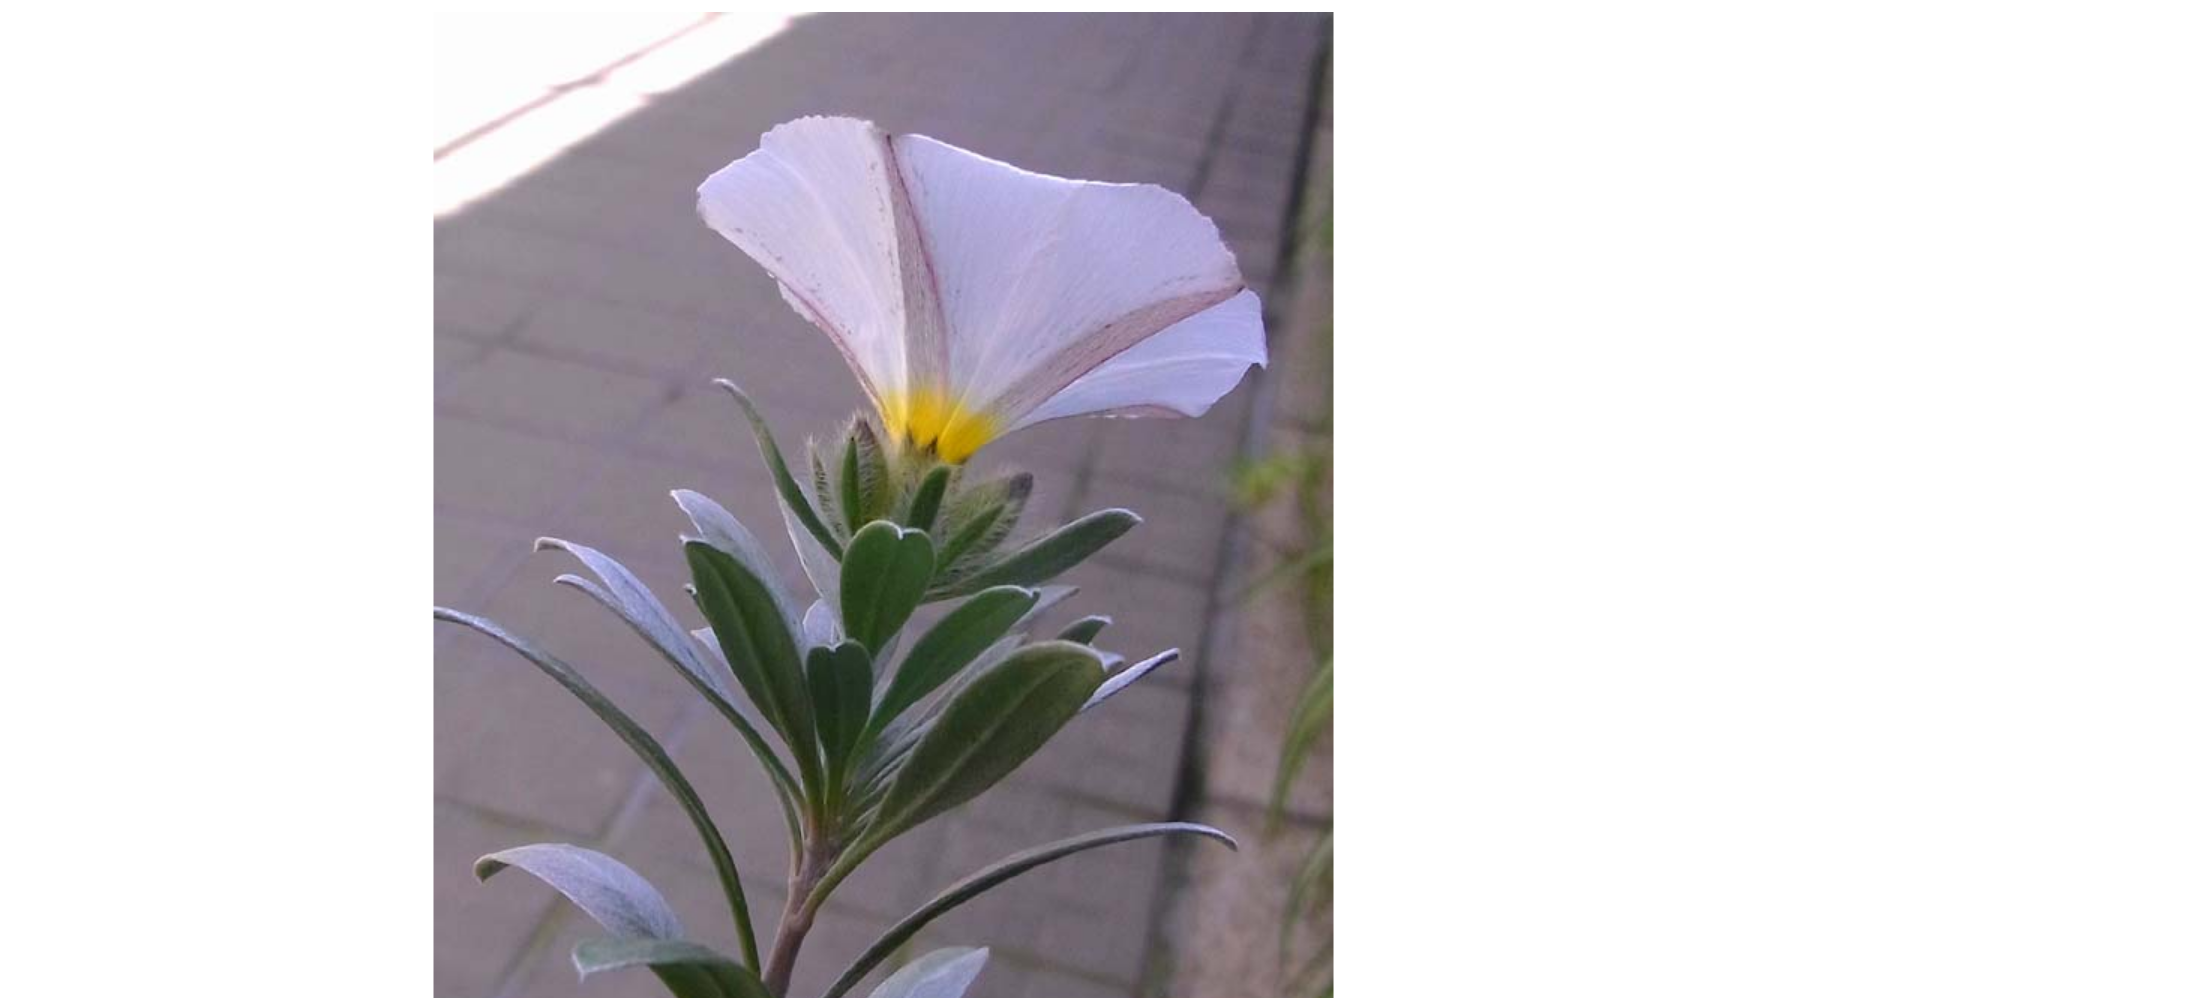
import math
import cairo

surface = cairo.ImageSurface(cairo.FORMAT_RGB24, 2210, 998)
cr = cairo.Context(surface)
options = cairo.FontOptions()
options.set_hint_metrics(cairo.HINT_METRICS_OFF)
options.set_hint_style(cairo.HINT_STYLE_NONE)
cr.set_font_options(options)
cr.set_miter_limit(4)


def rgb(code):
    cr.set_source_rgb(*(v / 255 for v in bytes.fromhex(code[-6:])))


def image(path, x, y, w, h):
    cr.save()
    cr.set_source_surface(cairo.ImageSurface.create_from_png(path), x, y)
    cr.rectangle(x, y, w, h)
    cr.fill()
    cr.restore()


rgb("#ffffff")
cr.paint()
image("img/1.png", 433, 12, 901, 986)
surface.write_to_png("page.png")
